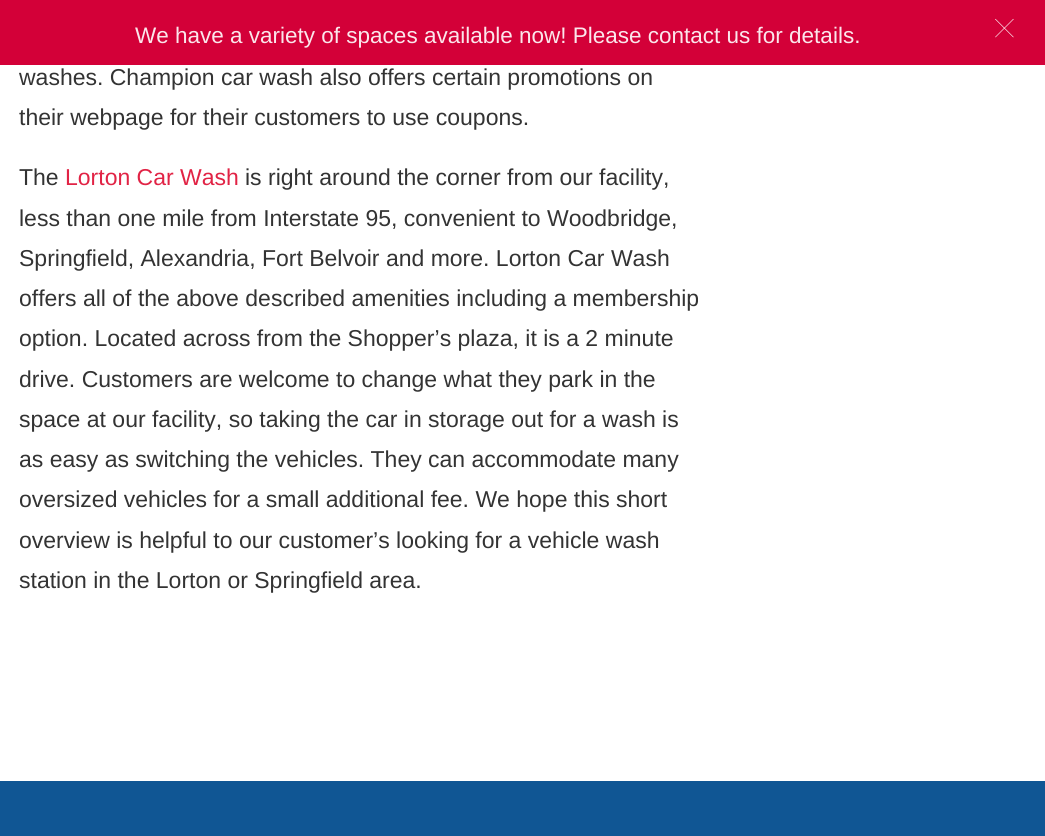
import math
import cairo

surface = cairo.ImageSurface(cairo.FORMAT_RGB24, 1045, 836)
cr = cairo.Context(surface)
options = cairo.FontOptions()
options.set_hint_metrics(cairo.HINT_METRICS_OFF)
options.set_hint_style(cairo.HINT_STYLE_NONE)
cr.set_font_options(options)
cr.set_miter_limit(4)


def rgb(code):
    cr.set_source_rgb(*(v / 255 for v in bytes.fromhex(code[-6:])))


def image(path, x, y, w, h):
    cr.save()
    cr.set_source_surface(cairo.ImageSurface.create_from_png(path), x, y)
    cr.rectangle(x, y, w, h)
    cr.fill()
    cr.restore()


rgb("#ffffff")
cr.paint()
rgb("#d30038")
cr.rectangle(0, 0, 1045, 65)
cr.fill()
image("img/1.png", 995, 18, 19, 20)
rgb("#105694")
cr.rectangle(0, 781, 1045, 55)
cr.fill()
cr.select_font_face("Liberation Sans")
cr.set_font_size(22.5)
rgb("#fbe6eb")
cr.move_to(135, 43)
cr.show_text("We have a variety of spaces available now! Please contact us for details.")
cr.set_font_size(23)
rgb("#333333")
for x, y, s in [
    (19, 85, "washes. Champion car wash also offers certain promotions on"),
    (19, 125, "their webpage for their customers to use coupons."),
    (19, 185, "The"),
]:
    cr.move_to(x, y)
    cr.show_text(s)
rgb("#e12345")
cr.move_to(65, 185)
cr.show_text("Lorton Car Wash")
rgb("#333333")
for x, y, s in [
    (245, 185, "is right around the corner from our facility,"),
    (19, 226, "less than one mile from Interstate 95, convenient to Woodbridge,"),
    (19, 266, "Springfield, Alexandria, Fort Belvoir and more. Lorton Car Wash"),
    (19, 306, "offers all of the above described amenities including a membership"),
    (19, 346, "option. Located across from the Shopper’s plaza, it is a 2 minute"),
    (19, 387, "drive. Customers are welcome to change what they park in the"),
    (19, 427, "space at our facility, so taking the car in storage out for a wash is"),
    (19, 467, "as easy as switching the vehicles. They can accommodate many"),
    (19, 507, "oversized vehicles for a small additional fee. We hope this short"),
    (19, 548, "overview is helpful to our customer’s looking for a vehicle wash"),
    (19, 588, "station in the Lorton or Springfield area."),
]:
    cr.move_to(x, y)
    cr.show_text(s)
surface.write_to_png("page.png")
